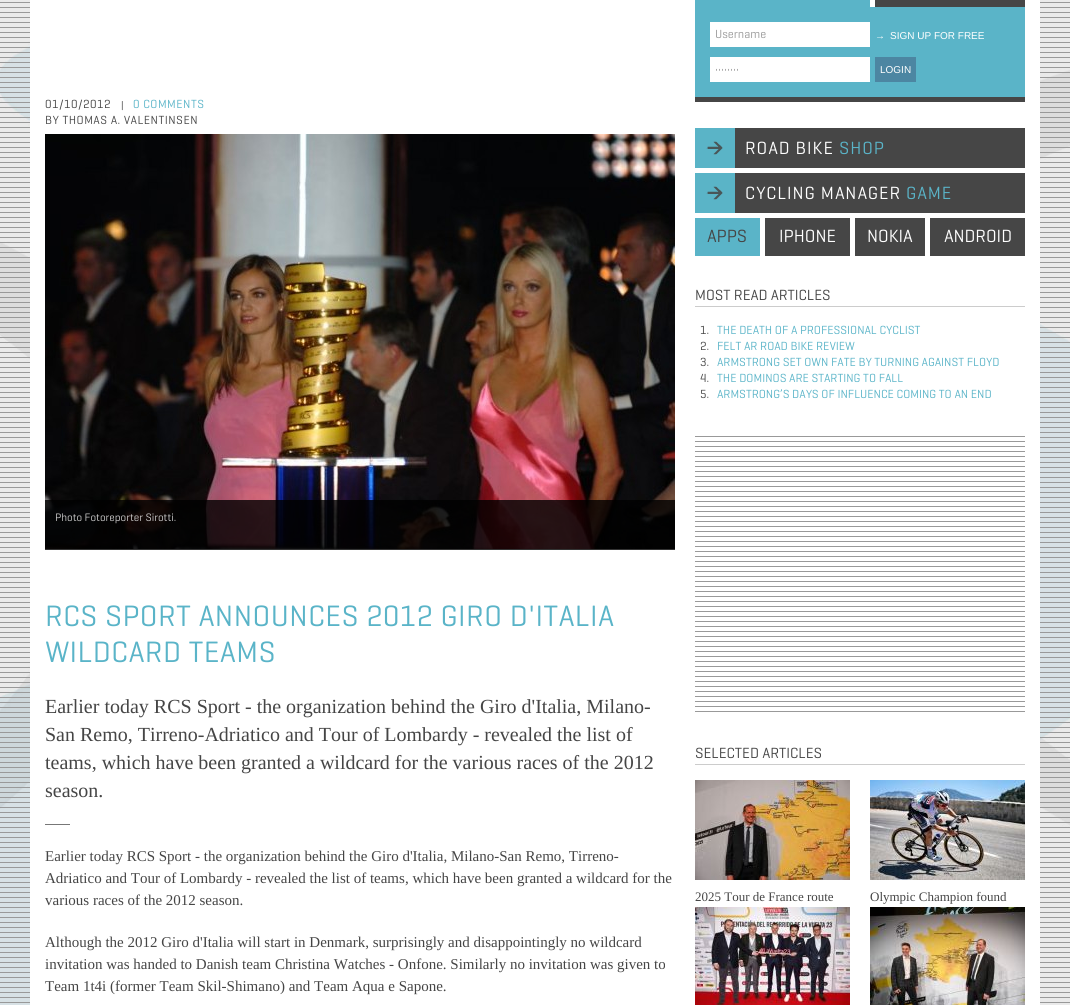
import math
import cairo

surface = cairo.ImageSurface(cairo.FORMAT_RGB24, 1070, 1005)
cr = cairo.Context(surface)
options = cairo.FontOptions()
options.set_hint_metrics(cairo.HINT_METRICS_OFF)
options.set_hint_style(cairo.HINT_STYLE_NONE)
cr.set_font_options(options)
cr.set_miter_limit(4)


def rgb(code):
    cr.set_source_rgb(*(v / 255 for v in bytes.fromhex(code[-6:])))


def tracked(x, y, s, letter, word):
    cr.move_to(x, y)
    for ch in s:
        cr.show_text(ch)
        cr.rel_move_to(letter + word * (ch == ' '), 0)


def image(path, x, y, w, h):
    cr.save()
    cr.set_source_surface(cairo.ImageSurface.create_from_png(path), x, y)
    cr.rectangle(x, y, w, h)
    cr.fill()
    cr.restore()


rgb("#ffffff")
cr.paint()
image("img/1.png", 0, 0, 1070, 1005)
rgb("#ffffff")
cr.rectangle(30, 0, 1010, 1005)
cr.fill()
image("img/2.png", 45, 134, 630, 415)
cr.set_source_rgba(0, 0, 0, 0.8)
cr.rectangle(45, 500, 630, 50)
cr.fill()
rgb("#777777")
cr.rectangle(45, 824, 25, 1)
cr.fill()
rgb("#5ab4c8")
cr.rectangle(695, 0, 175, 7)
cr.fill()
rgb("#464646")
cr.rectangle(875, 0, 150, 7)
cr.fill()
rgb("#5ab4c8")
cr.rectangle(695, 7, 330, 90)
cr.fill()
rgb("#464646")
cr.rectangle(695, 97, 330, 5)
cr.fill()
rgb("#ffffff")
cr.rectangle(710, 22, 160, 25)
cr.rectangle(710, 57, 160, 25)
cr.fill()
rgb("#4c86a2")
cr.rectangle(875, 57, 41, 25)
cr.fill()
rgb("#464646")
cr.rectangle(735, 128, 290, 40)
cr.fill()
image("img/3.png", 695, 128, 40, 40)
cr.rectangle(735, 173, 290, 40)
cr.fill()
image("img/3.png", 695, 173, 40, 40)
for x, y, w, h, color in [
    (695, 218, 65, 38, "#5ab4c8"),
    (765, 218, 85, 38, "#464646"),
    (855, 218, 70, 38, "#464646"),
    (930, 218, 95, 38, "#464646"),
    (695, 306, 330, 1, "#cccccc"),
]:
    rgb(color)
    cr.rectangle(x, y, w, h)
    cr.fill()
image("img/4.png", 695, 436, 330, 276)
cr.rectangle(695, 764, 330, 1)
cr.fill()
image("img/5.png", 695, 780, 155, 100)
image("img/6.png", 870, 780, 155, 100)
image("img/7.png", 695, 907, 155, 98)
image("img/8.png", 870, 907, 155, 98)
cr.select_font_face("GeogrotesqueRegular")
cr.set_font_size(12)
rgb("#454545")
tracked(45, 108, "01/10/2012", 0.5, 0)
cr.set_font_size(10)
cr.move_to(121, 108)
cr.show_text("|")
cr.set_font_size(12)
rgb("#5ab4c8")
tracked(133, 108, "0 COMMENTS", 0.5, 0)
rgb("#454545")
tracked(45, 124, "BY THOMAS A. VALENTINSEN", 0.5, 0)
cr.set_font_size(11)
rgb("#cecdcd")
cr.move_to(55, 521)
cr.show_text("Photo Fotoreporter Sirotti.")
cr.set_font_size(30)
rgb("#5ab4c8")
tracked(45, 626, "RCS SPORT ANNOUNCES 2012 GIRO D'ITALIA", 0.5, 0)
tracked(45, 662, "WILDCARD TEAMS", 0.5, 0)
cr.select_font_face("Liberation Serif")
cr.set_font_size(20)
rgb("#454545")
for x, y, s in [
    (45, 713, "Earlier today RCS Sport - the organization behind the Giro d'Italia, Milano-"),
    (45, 741, "San Remo, Tirreno-Adriatico and Tour of Lombardy - revealed the list of"),
    (45, 769, "teams, which have been granted a wildcard for the various races of the 2012"),
    (45, 797, "season."),
]:
    cr.move_to(x, y)
    cr.show_text(s)
cr.set_font_size(15)
for x, y, s in [
    (45, 861, "Earlier today RCS Sport - the organization behind the Giro d'Italia, Milano-San Remo, Tirreno-"),
    (45, 883, "Adriatico and Tour of Lombardy - revealed the list of teams, which have been granted a wildcard for the"),
    (45, 905, "various races of the 2012 season."),
    (45, 947, "Although the 2012 Giro d'Italia will start in Denmark, surprisingly and disappointingly no wildcard"),
    (45, 969, "invitation was handed to Danish team Christina Watches - Onfone. Similarly no invitation was given to"),
    (45, 991, "Team 1t4i (former Team Skil-Shimano) and Team Aqua e Sapone."),
]:
    cr.move_to(x, y)
    cr.show_text(s)
cr.select_font_face("GeogrotesqueRegular")
cr.set_font_size(12)
rgb("#989898")
cr.move_to(715, 38)
cr.show_text("Username")
cr.move_to(715, 73)
cr.show_text("••••••••")
cr.select_font_face("Liberation Sans")
cr.set_font_size(10)
rgb("#ffffff")
for x, y, s in [
    (880, 73, "LOGIN"),
    (875, 39, "→"),
    (890, 39, "SIGN UP FOR FREE"),
]:
    cr.move_to(x, y)
    cr.show_text(s)
cr.select_font_face("GeogrotesqueRegular")
cr.set_font_size(18)
tracked(745, 154, "ROAD BIKE", 1, 0)
rgb("#5ab4c8")
tracked(839, 154, "SHOP", 1, 0)
rgb("#ffffff")
tracked(745, 199, "CYCLING MANAGER", 1, 0)
rgb("#5ab4c8")
tracked(906, 199, "GAME", 1, 0)
rgb("#454545")
cr.move_to(707, 242)
cr.show_text("APPS")
rgb("#ffffff")
for x, y, s in [
    (779, 242, "IPHONE"),
    (867, 242, "NOKIA"),
    (944, 242, "ANDROID"),
]:
    cr.move_to(x, y)
    cr.show_text(s)
cr.set_font_size(15)
rgb("#454545")
cr.move_to(695, 300)
cr.show_text("MOST READ ARTICLES")
cr.set_font_size(12)
cr.move_to(700, 334)
cr.show_text("1.")
rgb("#5ab4c8")
cr.move_to(717, 334)
cr.show_text("THE DEATH OF A PROFESSIONAL CYCLIST")
rgb("#454545")
cr.move_to(700, 350)
cr.show_text("2.")
rgb("#5ab4c8")
cr.move_to(717, 350)
cr.show_text("FELT AR ROAD BIKE REVIEW")
rgb("#454545")
cr.move_to(700, 366)
cr.show_text("3.")
rgb("#5ab4c8")
cr.move_to(717, 366)
cr.show_text("ARMSTRONG SET OWN FATE BY TURNING AGAINST FLOYD")
rgb("#454545")
cr.move_to(700, 382)
cr.show_text("4.")
rgb("#5ab4c8")
cr.move_to(717, 382)
cr.show_text("THE DOMINOS ARE STARTING TO FALL")
rgb("#454545")
cr.move_to(700, 398)
cr.show_text("5.")
rgb("#5ab4c8")
cr.move_to(717, 398)
cr.show_text("ARMSTRONG’S DAYS OF INFLUENCE COMING TO AN END")
cr.set_font_size(15)
rgb("#454545")
cr.move_to(695, 758)
cr.show_text("SELECTED ARTICLES")
cr.select_font_face("Liberation Serif")
cr.set_font_size(13)
cr.move_to(695, 901)
cr.show_text("2025 Tour de France route")
cr.move_to(870, 901)
cr.show_text("Olympic Champion found")
surface.write_to_png("page.png")
